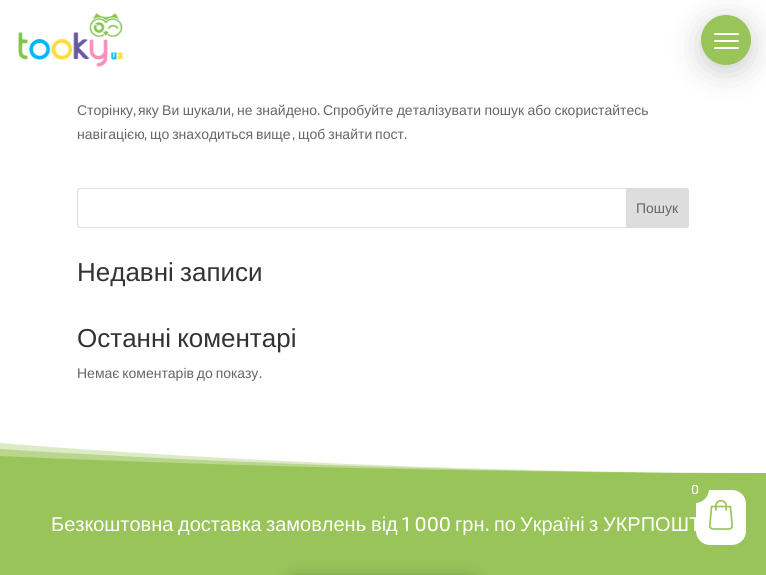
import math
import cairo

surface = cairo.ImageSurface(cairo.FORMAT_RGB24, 766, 575)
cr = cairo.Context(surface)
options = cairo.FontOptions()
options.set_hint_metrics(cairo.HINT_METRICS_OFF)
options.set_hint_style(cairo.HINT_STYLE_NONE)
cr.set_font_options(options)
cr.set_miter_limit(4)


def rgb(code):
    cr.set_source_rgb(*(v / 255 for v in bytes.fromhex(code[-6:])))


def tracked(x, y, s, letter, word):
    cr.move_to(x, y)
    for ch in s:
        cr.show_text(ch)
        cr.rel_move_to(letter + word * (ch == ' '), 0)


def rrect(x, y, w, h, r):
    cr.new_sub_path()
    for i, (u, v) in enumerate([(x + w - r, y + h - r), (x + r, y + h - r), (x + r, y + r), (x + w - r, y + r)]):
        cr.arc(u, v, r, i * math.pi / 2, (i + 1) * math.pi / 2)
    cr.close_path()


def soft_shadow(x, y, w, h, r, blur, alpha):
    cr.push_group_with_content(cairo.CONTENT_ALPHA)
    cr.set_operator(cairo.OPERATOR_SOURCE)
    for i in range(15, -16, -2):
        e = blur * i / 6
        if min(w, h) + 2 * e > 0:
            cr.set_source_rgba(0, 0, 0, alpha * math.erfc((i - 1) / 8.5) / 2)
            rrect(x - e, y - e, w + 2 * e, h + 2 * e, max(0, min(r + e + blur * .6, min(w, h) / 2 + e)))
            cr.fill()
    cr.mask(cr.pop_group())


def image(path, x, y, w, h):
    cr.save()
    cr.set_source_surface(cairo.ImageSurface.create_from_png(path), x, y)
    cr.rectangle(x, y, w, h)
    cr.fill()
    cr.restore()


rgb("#ffffff")
cr.paint()
image("img/1.png", 18, 13, 106, 54)
rgb("#000000")
soft_shadow(701, 21, 50, 50, 25, 15, 0.2)
rgb("#99c45a")
cr.arc(726, 40, 25, 0, 2 * math.pi)
cr.fill()
rgb("#ffffff")
rrect(714, 40, 25, 2, 1)
cr.fill()
rrect(714, 33, 25, 2, 1)
cr.fill()
rrect(714, 47, 25, 2, 1)
cr.fill()
rrect(77.5, 188.5, 611, 39, 2.5)
rgb("#dddddd")
cr.set_line_width(1)
cr.stroke()
cr.new_path()
cr.move_to(626.5, 188.5)
cr.line_to(686, 188.5)
cr.curve_to(687.5, 188.5, 688.5, 189.5, 688.5, 191)
cr.line_to(688.5, 225)
cr.curve_to(688.5, 226.5, 687.5, 227.5, 686, 227.5)
cr.line_to(626.5, 227.5)
cr.close_path()
cr.fill_preserve()
cr.stroke()
rgb("#99c45a")
cr.rectangle(0, 456, 766, 119)
cr.fill()
rgb("#b8d68c")
cr.new_path()
cr.move_to(0, 443)
cr.line_to(0, 456)
cr.curve_to(0, 456, 343, 473, 766, 473)
cr.line_to(766, 443)
cr.close_path()
cr.fill()
cr.set_source_rgba(1, 1, 1, 0.5)
cr.new_path()
cr.move_to(0, 443)
cr.line_to(0, 449)
cr.curve_to(0, 449, 343, 473, 766, 473)
cr.line_to(766, 443)
cr.close_path()
cr.fill()
rgb("#ffffff")
cr.new_path()
cr.move_to(0, 443)
cr.curve_to(0, 443, 343, 473, 766, 473)
cr.line_to(766, 443)
cr.close_path()
cr.fill()
rgb("#000000")
soft_shadow(292, 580, 182, 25, 3, 9, 0.3)
rgb("#99c45a")
soft_shadow(696, 491, 50, 55, 14, 2, 1)
rgb("#ffffff")
rrect(696, 490, 50, 55, 14)
cr.fill()
rgb("#99c45a")
cr.arc(695, 489, 14, 0, 2 * math.pi)
cr.fill()
image("img/2.png", 709, 499, 24, 31)
cr.select_font_face("Liberation Sans")
cr.set_font_size(14)
rgb("#666666")
cr.move_to(77, 115)
cr.show_text("Сторінку")
cr.select_font_face("Exo 2 Medium")
cr.move_to(133, 115)
cr.show_text(",")
cr.select_font_face("Liberation Sans")
tracked(138, 115, "яку Ви шукали", 0, -0.5)
cr.select_font_face("Exo 2 Medium")
cr.move_to(231, 115)
cr.show_text(",")
cr.select_font_face("Liberation Sans")
tracked(237, 115, "не знайдено", 0, -0.5)
cr.select_font_face("Exo 2 Medium")
cr.move_to(317, 115)
cr.show_text(".")
cr.select_font_face("Liberation Sans")
tracked(323, 115, "Спробуйте деталізувати пошук або скористайтесь", 0, -0.5)
cr.move_to(77, 139)
cr.show_text("навігацією")
cr.select_font_face("Exo 2 Medium")
cr.move_to(144, 139)
cr.show_text(",")
cr.select_font_face("Liberation Sans")
tracked(150, 139, "що знаходиться вище", 0, -1)
cr.select_font_face("Exo 2 Medium")
cr.move_to(292, 139)
cr.show_text(",")
cr.select_font_face("Liberation Sans")
tracked(298, 139, "щоб знайти пост", 0, -1)
cr.select_font_face("Exo 2 Medium")
cr.move_to(404, 139)
cr.show_text(".")
cr.select_font_face("Liberation Sans")
cr.move_to(636, 213)
cr.show_text("Пошук")
cr.set_font_size(26)
rgb("#333333")
tracked(77, 281, "Недавні записи", 0, -1)
tracked(77, 347, "Останні коментарі", 0, -1)
cr.set_font_size(14)
rgb("#666666")
tracked(77, 378, "Немає коментарів до показу", 0, -1)
cr.select_font_face("Exo 2 Medium")
cr.move_to(259, 378)
cr.show_text(".")
cr.select_font_face("Liberation Sans")
cr.set_font_size(20)
rgb("#ffffff")
for x, y, s in [
    (51, 531, "Безкоштовна"),
    (178, 531, "доставка"),
    (266, 531, "замовлень"),
    (371, 531, "від"),
]:
    cr.move_to(x, y)
    cr.show_text(s)
cr.select_font_face("Exo 2 Medium")
cr.move_to(402, 531)
cr.show_text("1 000")
cr.select_font_face("Liberation Sans")
cr.move_to(455, 531)
cr.show_text("грн")
cr.select_font_face("Exo 2 Medium")
cr.move_to(485, 531)
cr.show_text(".")
cr.select_font_face("Liberation Sans")
for x, y, s in [
    (494, 531, "по"),
    (520, 531, "Україні"),
    (589, 531, "з"),
    (603, 531, "УКРПОШТ"),
]:
    cr.move_to(x, y)
    cr.show_text(s)
cr.select_font_face("Exo 2 Medium")
cr.set_font_size(13)
cr.move_to(691, 494)
cr.show_text("0")
surface.write_to_png("page.png")
